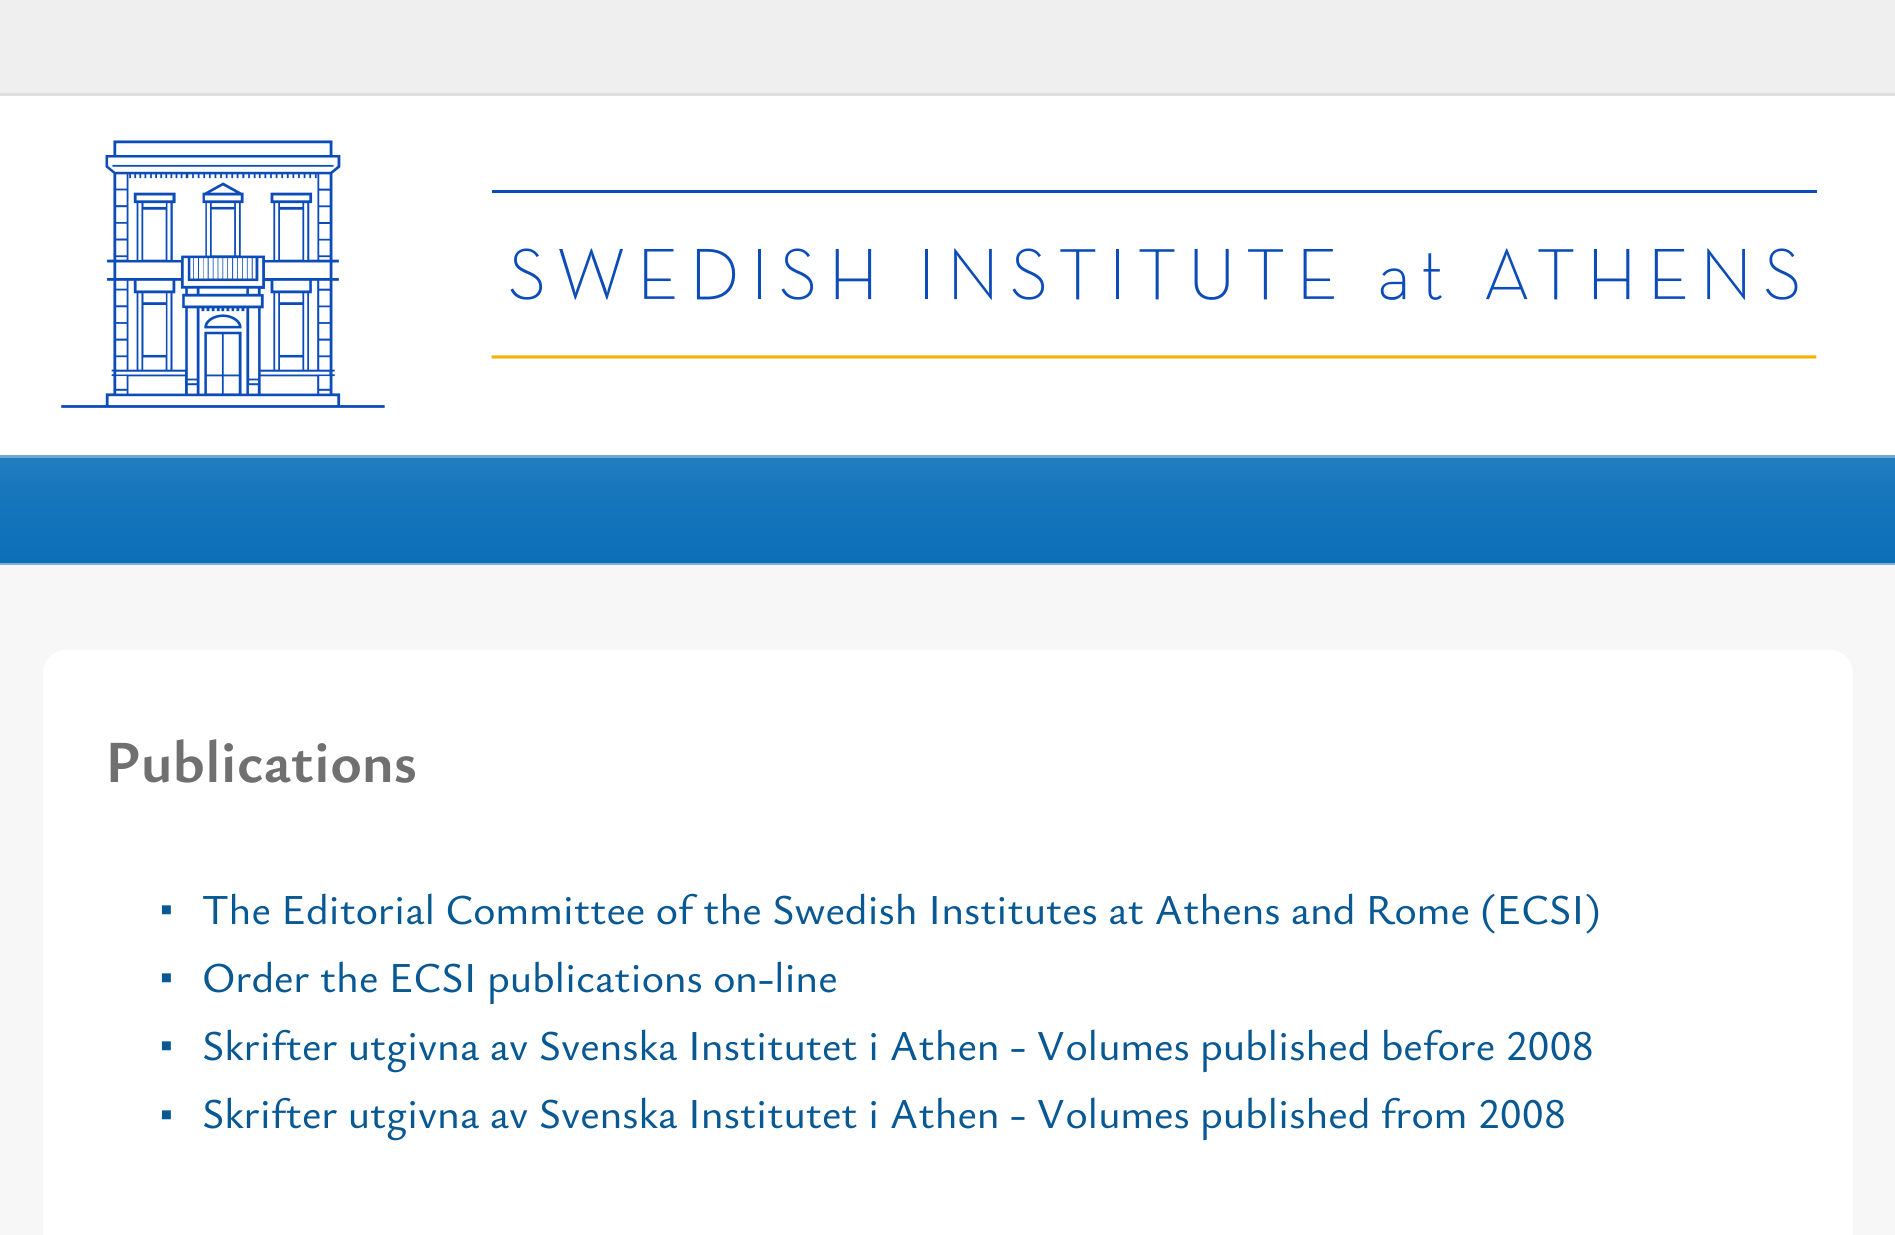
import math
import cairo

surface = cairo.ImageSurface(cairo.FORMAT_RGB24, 1895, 1235)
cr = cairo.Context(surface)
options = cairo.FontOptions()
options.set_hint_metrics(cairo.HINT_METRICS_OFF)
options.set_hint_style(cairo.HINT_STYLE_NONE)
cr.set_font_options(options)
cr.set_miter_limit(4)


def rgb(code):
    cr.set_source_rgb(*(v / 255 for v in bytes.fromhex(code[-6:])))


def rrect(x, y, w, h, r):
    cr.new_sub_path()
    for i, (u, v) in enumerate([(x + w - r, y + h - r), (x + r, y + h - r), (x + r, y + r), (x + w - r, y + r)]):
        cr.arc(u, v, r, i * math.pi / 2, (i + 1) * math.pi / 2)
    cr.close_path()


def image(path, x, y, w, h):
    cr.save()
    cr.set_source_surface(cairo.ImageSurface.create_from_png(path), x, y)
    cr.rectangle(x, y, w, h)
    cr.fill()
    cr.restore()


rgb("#f7f7f7")
cr.paint()
for x, y, w, h, color in [
    (0, 565, 1895, 1, "#fafafa"),
    (0, 0, 1895, 93, "#efefef"),
    (0, 96, 1895, 359, "#ffffff"),
    (0, 93, 1895, 3, "#dfdfdf"),
]:
    rgb(color)
    cr.rectangle(x, y, w, h)
    cr.fill()
image("img/1.png", 61, 140, 1756, 268)
gradient = cairo.LinearGradient(948, 457, 948, 563)
gradient.add_color_stop_rgba(0, 0.137, 0.494, 0.749, 1)
gradient.add_color_stop_rgba(0.33, 0.09, 0.463, 0.737, 1)
gradient.add_color_stop_rgba(1, 0.043, 0.435, 0.722, 1)
cr.set_source(gradient)
cr.rectangle(0, 458, 1895, 105)
cr.fill()
gradient = cairo.LinearGradient(948, 562, 948, 668)
gradient.add_color_stop_rgba(0, 0.482, 0.694, 0.851, 1)
gradient.add_color_stop_rgba(0.33, 0.455, 0.678, 0.843, 1)
gradient.add_color_stop_rgba(1, 0.427, 0.663, 0.831, 1)
cr.set_source(gradient)
cr.rectangle(0, 563, 1895, 2)
cr.fill()
rgb("#6da9d4")
cr.rectangle(0, 455, 1895, 3)
cr.fill()
rgb("#ffffff")
rrect(43, 650, 1810, 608, 23)
cr.fill()
cr.select_font_face("Ysabeau Office", cairo.FONT_SLANT_NORMAL, cairo.FONT_WEIGHT_BOLD)
cr.set_font_size(59.5)
rgb("#707070")
cr.move_to(105, 782)
cr.show_text("Publications")
cr.select_font_face("Liberation Sans")
cr.set_font_size(36)
rgb("#085893")
cr.move_to(160, 921)
cr.show_text("▪")
cr.select_font_face("Ysabeau Office Medium")
cr.set_font_size(42.5)
cr.move_to(202, 924)
cr.show_text("The Editorial Committee of the Swedish Institutes at Athens and Rome (ECSI)")
cr.select_font_face("Liberation Sans")
cr.set_font_size(36)
cr.move_to(160, 989)
cr.show_text("▪")
cr.select_font_face("Ysabeau Office Medium")
cr.set_font_size(42.5)
cr.move_to(202, 992)
cr.show_text("Order the ECSI publications on-line")
cr.select_font_face("Liberation Sans")
cr.set_font_size(36)
cr.move_to(160, 1057)
cr.show_text("▪")
cr.select_font_face("Ysabeau Office Medium")
cr.set_font_size(42.5)
cr.move_to(202, 1060)
cr.show_text("Skrifter utgivna av Svenska Institutet i Athen - Volumes published before 2008")
cr.select_font_face("Liberation Sans")
cr.set_font_size(36)
cr.move_to(160, 1126)
cr.show_text("▪")
cr.select_font_face("Ysabeau Office Medium")
cr.set_font_size(42.5)
cr.move_to(202, 1128)
cr.show_text("Skrifter utgivna av Svenska Institutet i Athen - Volumes published from 2008")
surface.write_to_png("page.png")
